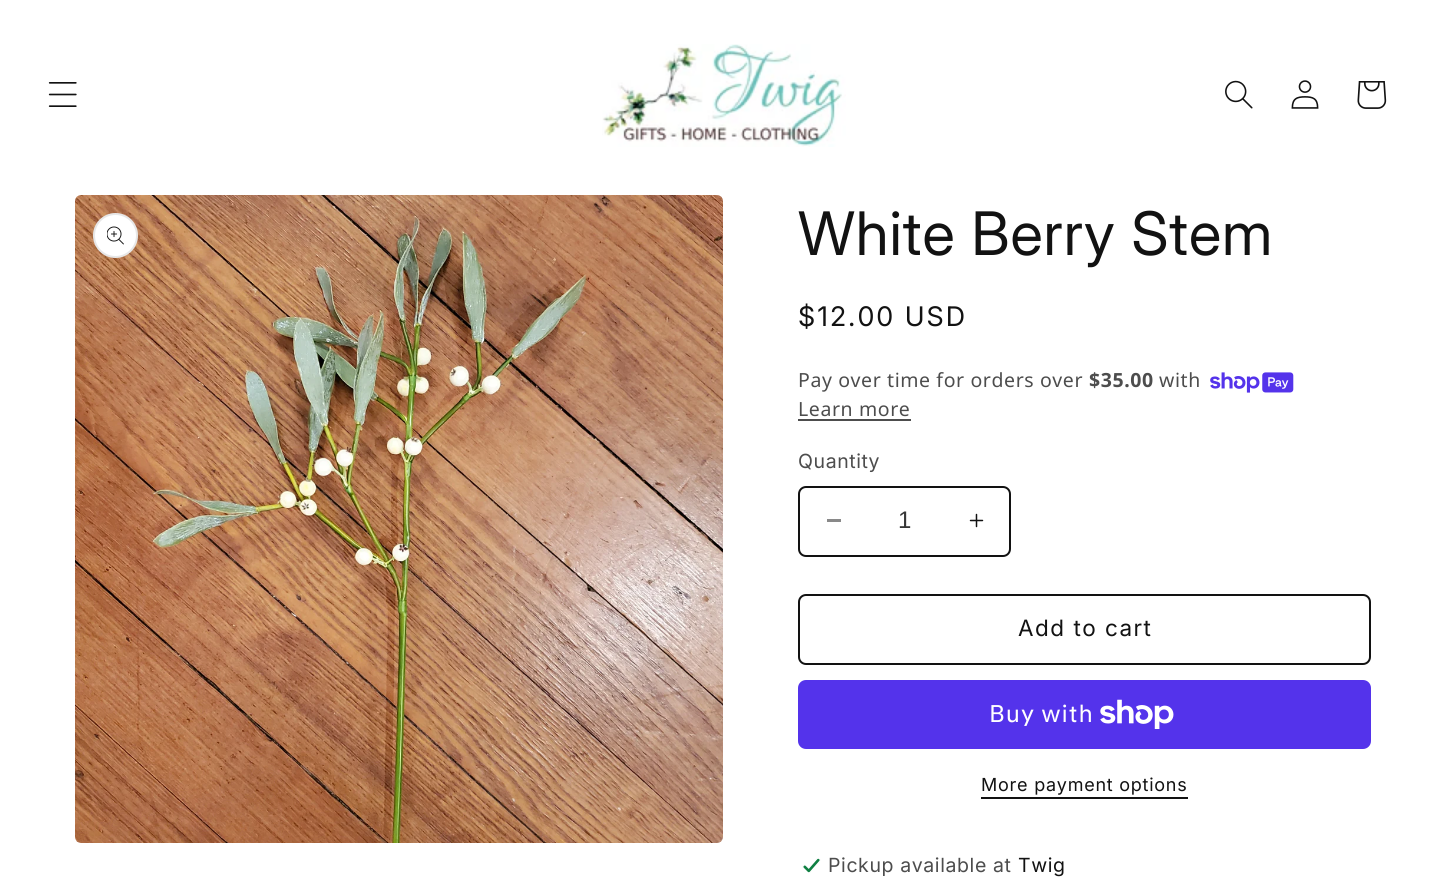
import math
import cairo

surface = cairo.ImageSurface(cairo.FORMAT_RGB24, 1445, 893)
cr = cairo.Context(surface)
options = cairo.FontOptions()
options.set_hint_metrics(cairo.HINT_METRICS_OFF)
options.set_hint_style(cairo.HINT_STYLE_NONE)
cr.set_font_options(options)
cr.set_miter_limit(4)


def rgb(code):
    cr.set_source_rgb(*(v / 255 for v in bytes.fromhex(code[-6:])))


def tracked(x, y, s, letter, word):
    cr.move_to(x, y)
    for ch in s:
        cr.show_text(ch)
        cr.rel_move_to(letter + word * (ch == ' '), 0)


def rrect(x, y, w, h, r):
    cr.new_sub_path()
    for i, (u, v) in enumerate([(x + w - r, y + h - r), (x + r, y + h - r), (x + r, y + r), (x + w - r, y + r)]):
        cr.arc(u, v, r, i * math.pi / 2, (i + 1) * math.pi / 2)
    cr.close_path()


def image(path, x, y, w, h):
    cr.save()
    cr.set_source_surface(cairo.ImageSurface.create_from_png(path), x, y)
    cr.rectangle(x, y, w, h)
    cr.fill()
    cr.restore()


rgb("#ffffff")
cr.paint()
image("img/1.png", 48, 82, 29, 25)
image("img/2.png", 602, 44, 244, 103)
image("img/3.png", 1225, 80, 28, 29)
image("img/4.png", 1291, 80, 28, 29)
image("img/5.png", 1357, 81, 30, 28)
image("img/6.png", 75, 195, 648, 648)
rgb("#ffffff")
cr.arc(115.5, 235.5, 22.5, 0, 2 * math.pi)
cr.fill()
cr.arc(115.5, 235.5, 21.5, 0, 2 * math.pi)
cr.set_source_rgba(0.071, 0.071, 0.071, 0.1)
cr.stroke()
image("img/7.png", 107, 226, 17, 19)
image("img/8.png", 1210, 372, 84, 21)
rgb("#4d4d4d")
cr.rectangle(798, 419, 113, 2)
cr.fill()
rgb("#898989")
cr.rectangle(827, 519, 14, 3)
cr.fill()
image("img/9.png", 969, 513, 15, 15)
rrect(799, 487, 211, 69, 7)
rgb("#121212")
cr.stroke()
rrect(799, 595, 571, 69, 7)
cr.stroke()
rgb("#5433eb")
rrect(798, 680, 573, 69, 8)
cr.fill()
image("img/10.png", 1100, 699, 74, 30)
rgb("#121212")
cr.rectangle(981, 797, 207, 2)
cr.fill()
image("img/11.png", 802, 858, 19, 15)
cr.select_font_face("Inter")
cr.set_font_size(60)
tracked(798, 255, "White Berry Stem", 0.9, 0)
cr.select_font_face("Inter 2")
cr.set_font_size(27)
tracked(798, 326, "$12.00 USD", 2, 0)
cr.select_font_face("Noto Sans")
cr.set_font_size(19.5)
rgb("#4d4d4d")
tracked(798, 387, "Pay over time for orders over", 0.6, 0)
cr.select_font_face("Noto Sans", cairo.FONT_SLANT_NORMAL, cairo.FONT_WEIGHT_BOLD)
tracked(1089, 387, "$35.00", 0.6, 0)
cr.select_font_face("Noto Sans")
tracked(1159, 387, "with", 0.6, 0)
tracked(798, 416, "Learn more", 0.6, 0)
cr.select_font_face("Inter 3")
tracked(798, 468, "Quantity", 0.6, 0)
cr.select_font_face("Liberation Sans")
cr.set_font_size(24)
rgb("#363636")
cr.move_to(898, 528)
cr.show_text("1")
cr.select_font_face("Inter 3")
cr.set_font_size(22.5)
rgb("#121212")
tracked(1018, 636, "Add to cart", 1.5, 0)
cr.select_font_face("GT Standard")
cr.set_font_size(24)
rgb("#ffffff")
tracked(989, 722, "Buy with", 0.9, 0)
cr.select_font_face("Inter 3")
cr.set_font_size(18)
rgb("#121212")
tracked(981, 791, "More payment options", 0.75, 0)
cr.set_font_size(19.5)
rgb("#4d4d4d")
tracked(828, 872, "Pickup available at", 0.6, 0)
rgb("#121212")
tracked(1018, 872, "Twig", 0.6, 0)
surface.write_to_png("page.png")
